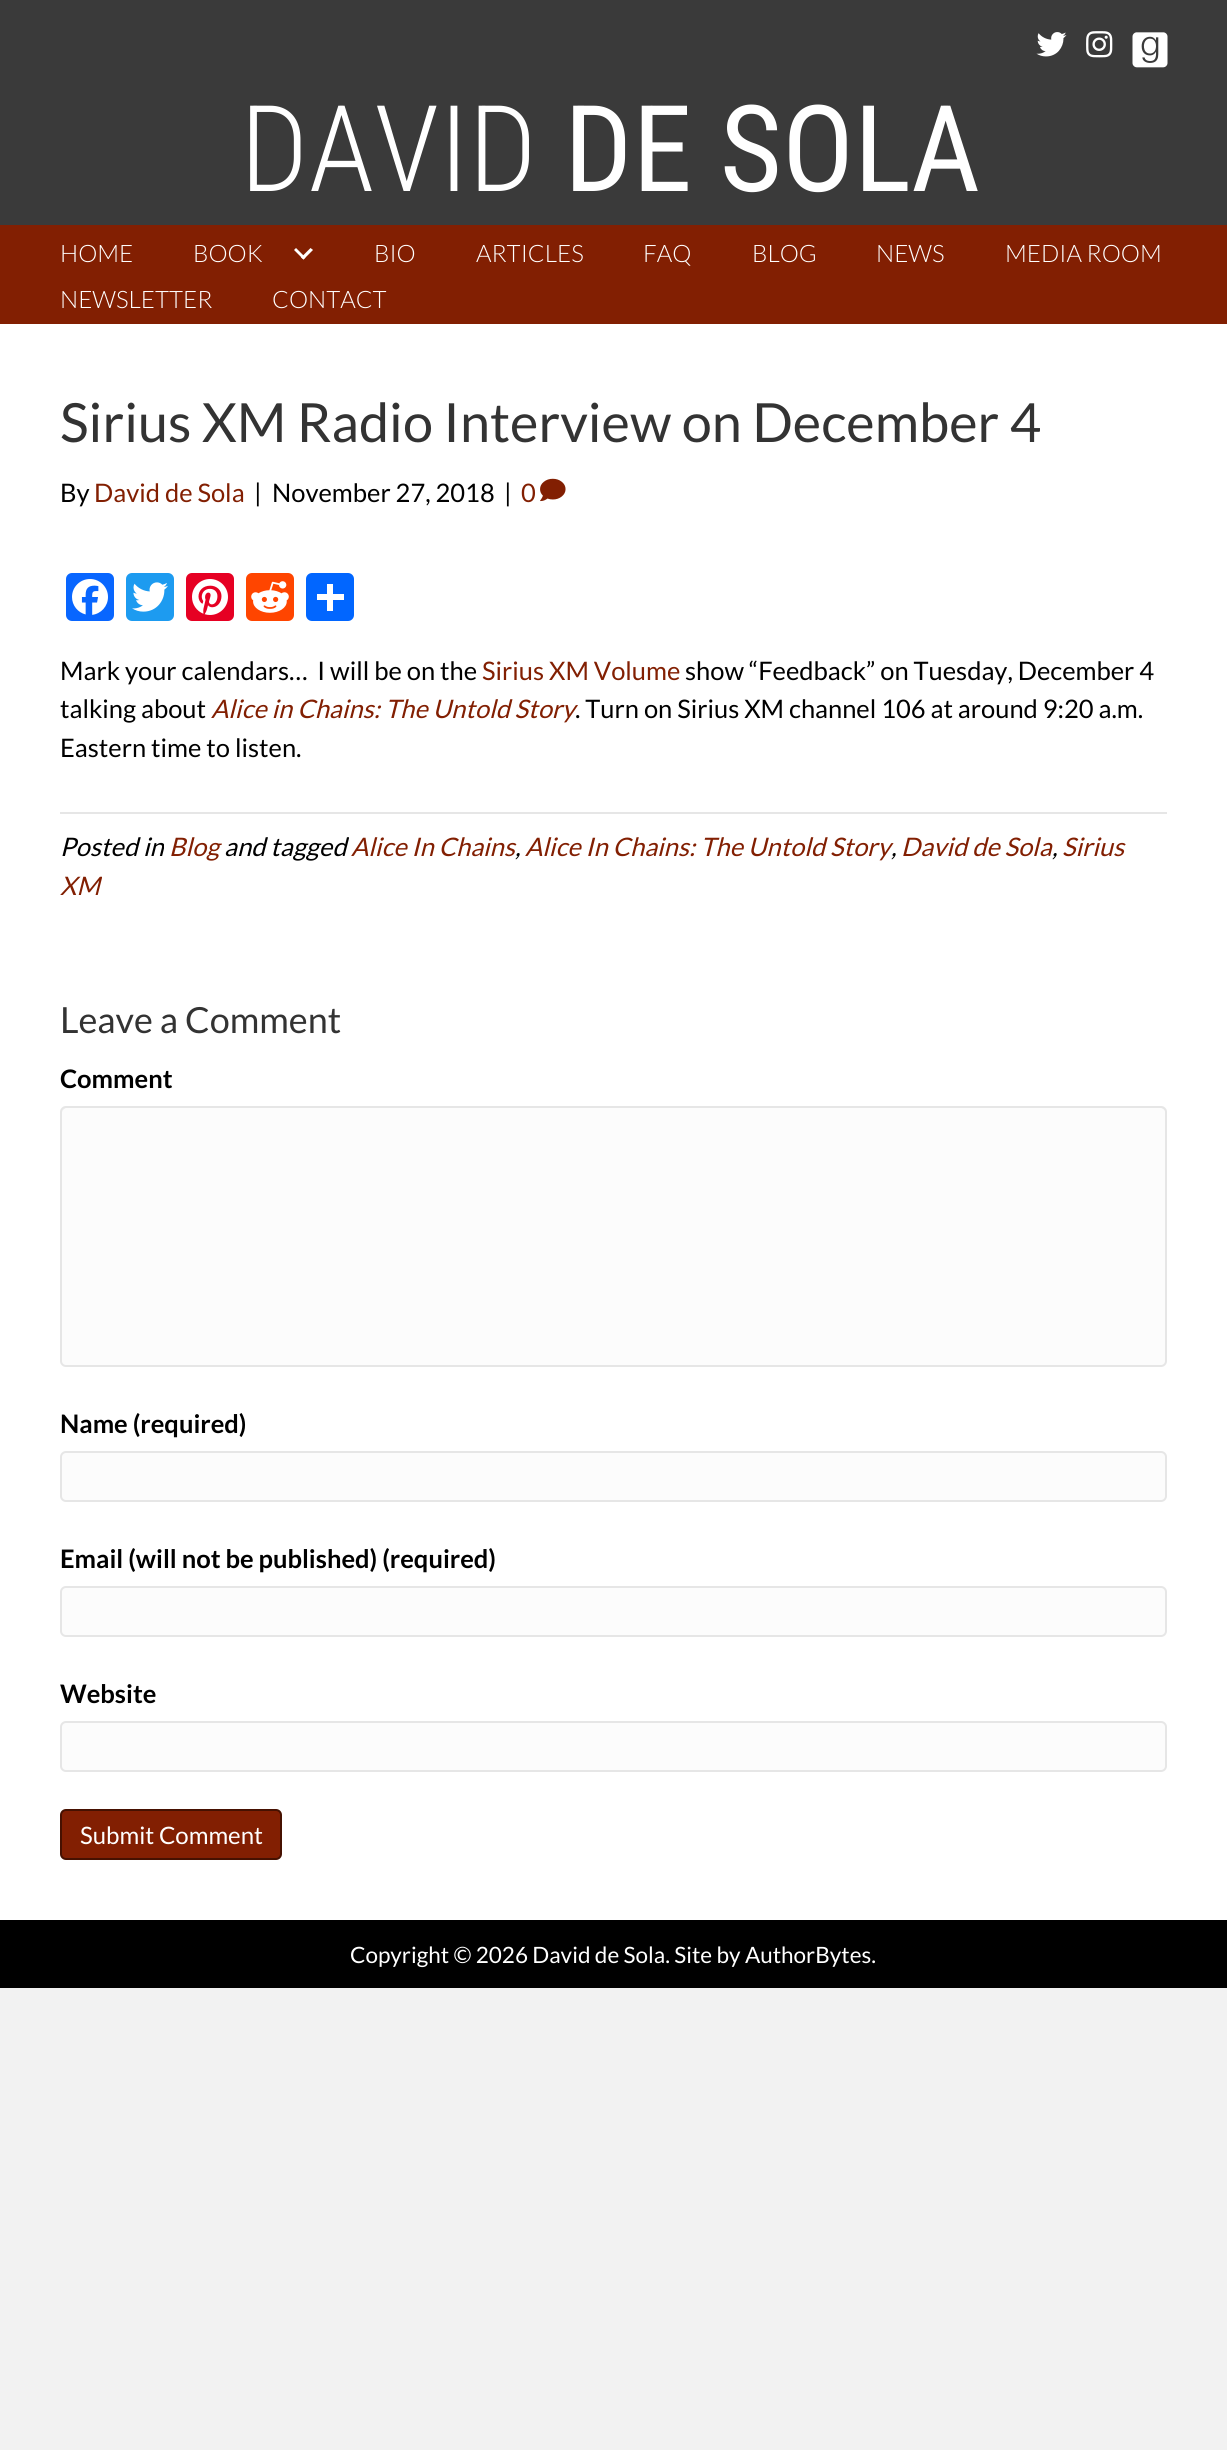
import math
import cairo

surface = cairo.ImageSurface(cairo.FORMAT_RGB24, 1227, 2450)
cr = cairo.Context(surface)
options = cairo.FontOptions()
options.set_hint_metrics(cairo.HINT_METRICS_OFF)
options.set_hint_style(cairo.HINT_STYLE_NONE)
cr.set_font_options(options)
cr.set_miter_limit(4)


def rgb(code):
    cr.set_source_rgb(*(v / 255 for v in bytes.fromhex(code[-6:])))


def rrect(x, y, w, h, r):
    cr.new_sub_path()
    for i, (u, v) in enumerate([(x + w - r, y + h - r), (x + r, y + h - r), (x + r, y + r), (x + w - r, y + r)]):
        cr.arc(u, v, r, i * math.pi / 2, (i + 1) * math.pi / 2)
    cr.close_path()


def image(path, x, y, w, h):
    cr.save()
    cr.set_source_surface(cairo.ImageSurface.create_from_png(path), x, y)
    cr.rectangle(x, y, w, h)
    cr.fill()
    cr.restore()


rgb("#f2f2f2")
cr.paint()
rgb("#3a3a3a")
cr.rectangle(0, 0, 1227, 225)
cr.fill()
image("img/1.png", 1036, 32, 31, 25)
image("img/2.png", 1086, 31, 27, 27)
image("img/3.png", 1132, 32, 36, 36)
rgb("#821f02")
cr.rectangle(0, 225, 1227, 99)
cr.fill()
rgb("#ffffff")
cr.new_path()
cr.move_to(310.5, 248)
cr.line_to(313, 250)
cr.line_to(303.5, 259.5)
cr.line_to(301, 257.5)
cr.close_path()
cr.fill()
cr.new_path()
cr.move_to(296, 248)
cr.line_to(305.5, 257.5)
cr.line_to(303.5, 259.5)
cr.line_to(294, 250)
cr.close_path()
cr.fill()
cr.rectangle(0, 324, 1227, 1596)
cr.fill()
image("img/4.png", 540, 478, 26, 24)
rgb("#0866ff")
rrect(66, 573, 48, 48, 6)
cr.fill()
image("img/5.png", 72, 579, 36, 36)
rgb("#1d9bf0")
rrect(126, 573, 48, 48, 6)
cr.fill()
image("img/6.png", 132, 582, 36, 30)
rgb("#e60023")
rrect(186, 573, 48, 48, 6)
cr.fill()
image("img/7.png", 192, 579, 36, 36)
rgb("#ff4500")
rrect(246, 573, 48, 48, 6)
cr.fill()
image("img/8.png", 251, 581, 38, 32)
rgb("#0166ff")
rrect(306, 573, 48, 48, 6)
cr.fill()
for x, y, w, h, color in [
    (327, 584, 6, 27, "#ffffff"),
    (317, 594, 27, 6, "#ffffff"),
    (60, 812, 1107, 2, "#e6e6e6"),
]:
    rgb(color)
    cr.rectangle(x, y, w, h)
    cr.fill()
rgb("#fcfcfc")
rrect(60, 1106, 1107, 261, 6)
cr.fill()
rgb("#e9e9e9")
cr.new_path()
cr.move_to(66, 1108)
cr.line_to(1161, 1108)
cr.curve_to(1163, 1108, 1166, 1111, 1166, 1113)
cr.curve_to(1166, 1110, 1164, 1107, 1161, 1107)
cr.line_to(67, 1107)
cr.curve_to(64, 1107, 62, 1110, 62, 1113)
cr.curve_to(62, 1111, 64, 1108, 66, 1108)
cr.close_path()
cr.fill()
rrect(61, 1107, 1105, 259, 5)
rgb("#e6e6e6")
cr.stroke()
rgb("#fcfcfc")
rrect(61, 1452, 1105, 49, 5)
cr.fill_preserve()
rgb("#e6e6e6")
cr.stroke()
rgb("#fcfcfc")
rrect(61, 1587, 1105, 49, 5)
cr.fill_preserve()
rgb("#e6e6e6")
cr.stroke()
rgb("#fcfcfc")
rrect(61, 1722, 1105, 49, 5)
cr.fill_preserve()
rgb("#e6e6e6")
cr.stroke()
rgb("#821f02")
rrect(61, 1810, 220, 49, 5)
cr.fill_preserve()
rgb("#461101")
cr.stroke()
rgb("#000000")
cr.rectangle(0, 1920, 1227, 68)
cr.fill()
cr.select_font_face("Roboto Condensed Light")
cr.set_font_size(120)
rgb("#ffffff")
cr.move_to(240, 191)
cr.show_text("DAVID")
cr.select_font_face("Roboto Condensed")
cr.move_to(564, 191)
cr.show_text("DE SOLA")
cr.select_font_face("Lato Light")
cr.set_font_size(24)
for x, y, s in [
    (60, 262, "HOME"),
    (193, 262, "BOOK"),
    (374, 262, "BIO"),
    (476, 262, "ARTICLES"),
    (643, 262, "FAQ"),
    (752, 262, "BLOG"),
    (876, 262, "NEWS"),
    (1005, 262, "MEDIA ROOM"),
    (60, 308, "NEWSLETTER"),
    (272, 308, "CONTACT"),
]:
    cr.move_to(x, y)
    cr.show_text(s)
cr.select_font_face("Lato")
cr.set_font_size(54)
rgb("#333333")
cr.move_to(60, 442)
cr.show_text("Sirius XM Radio Interview on December 4")
cr.set_font_size(25.5)
rgb("#000000")
cr.move_to(60, 502)
cr.show_text("By")
rgb("#821f02")
cr.move_to(94, 502)
cr.show_text("David de Sola")
rgb("#000000")
for x, y, s in [
    (254, 502, "|"),
    (272, 502, "November 27, 2018"),
    (504, 502, "|"),
]:
    cr.move_to(x, y)
    cr.show_text(s)
rgb("#821f02")
cr.move_to(521, 502)
cr.show_text("0")
rgb("#000000")
cr.move_to(60, 680)
cr.show_text("Mark your calendars…  I will be on the")
rgb("#821f02")
cr.move_to(482, 680)
cr.show_text("Sirius XM Volume")
rgb("#000000")
cr.move_to(685, 680)
cr.show_text("show “Feedback” on Tuesday, December 4")
cr.move_to(60, 718)
cr.show_text("talking about")
cr.select_font_face("Lato", cairo.FONT_SLANT_ITALIC)
rgb("#821f02")
cr.move_to(211, 718)
cr.show_text("Alice in Chains: The Untold Story")
cr.select_font_face("Lato")
rgb("#000000")
cr.move_to(575, 718)
cr.show_text(". Turn on Sirius XM channel 106 at around 9:20 a.m.")
cr.move_to(60, 757)
cr.show_text("Eastern time to listen.")
cr.select_font_face("Lato", cairo.FONT_SLANT_ITALIC)
cr.move_to(60, 856)
cr.show_text("Posted in")
rgb("#821f02")
cr.move_to(169, 856)
cr.show_text("Blog")
rgb("#000000")
cr.move_to(224, 856)
cr.show_text("and tagged")
rgb("#821f02")
cr.move_to(351, 856)
cr.show_text("Alice In Chains")
rgb("#000000")
cr.move_to(515, 856)
cr.show_text(",")
rgb("#821f02")
for x, y, s in [
    (525, 856, "Alice In Chains: The Untold Story"),
    (901, 856, "David de Sola"),
    (1062, 856, "Sirius"),
]:
    cr.move_to(x, y)
    cr.show_text(s)
rgb("#000000")
cr.move_to(891, 856)
cr.show_text(",")
cr.move_to(1052, 856)
cr.show_text(",")
rgb("#821f02")
cr.move_to(60, 895)
cr.show_text("XM")
cr.select_font_face("Lato")
cr.set_font_size(36)
rgb("#333333")
cr.move_to(60, 1033)
cr.show_text("Leave a Comment")
cr.select_font_face("Lato", cairo.FONT_SLANT_NORMAL, cairo.FONT_WEIGHT_BOLD)
cr.set_font_size(25.5)
rgb("#000000")
for x, y, s in [
    (60, 1088, "Comment"),
    (60, 1433, "Name (required)"),
    (60, 1568, "Email (will not be published) (required)"),
    (60, 1703, "Website"),
]:
    cr.move_to(x, y)
    cr.show_text(s)
cr.select_font_face("Lato")
cr.set_font_size(24)
rgb("#ffffff")
cr.move_to(80, 1844)
cr.show_text("Submit Comment")
cr.set_font_size(22.5)
cr.move_to(350, 1963)
cr.show_text("Copyright © 2026 David de Sola. Site by AuthorBytes.")
surface.write_to_png("page.png")
